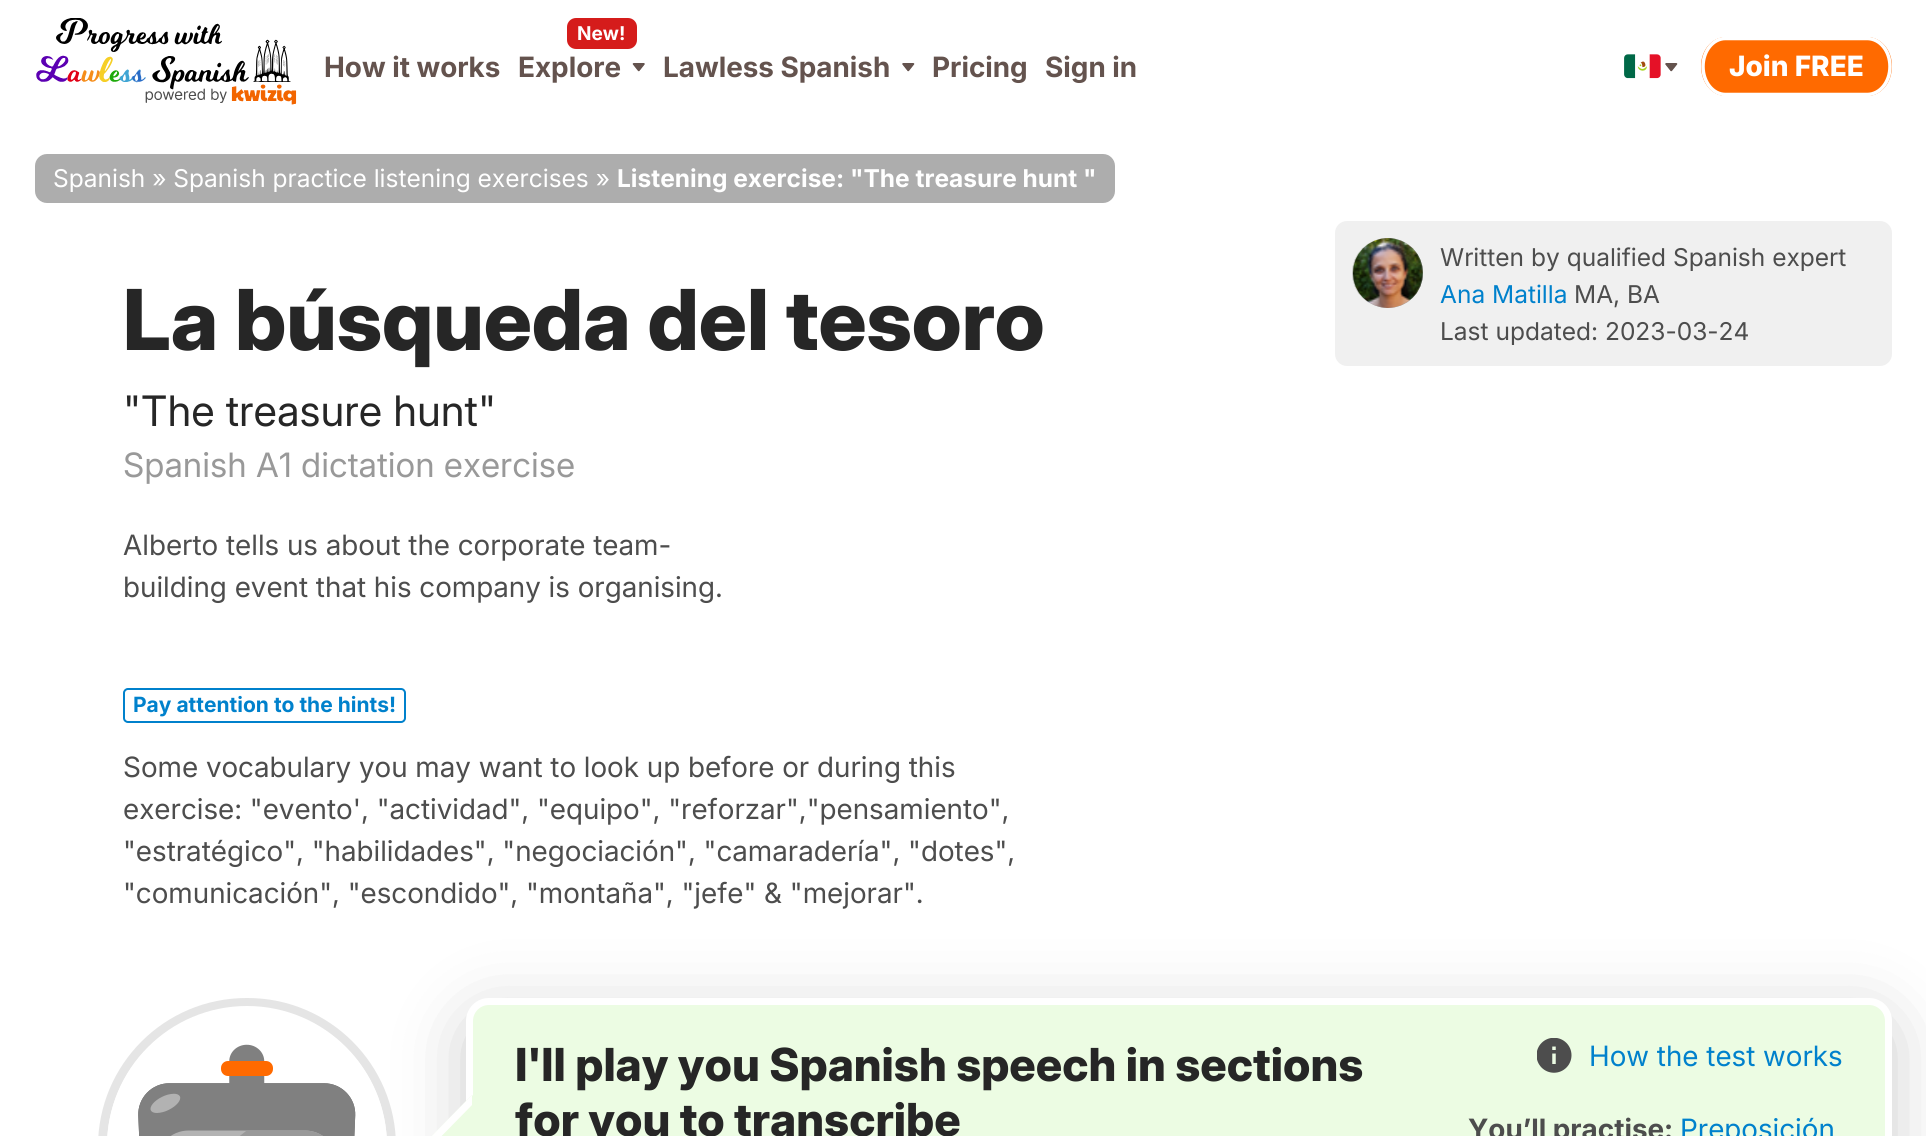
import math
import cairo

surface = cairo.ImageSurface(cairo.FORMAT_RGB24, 1926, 1136)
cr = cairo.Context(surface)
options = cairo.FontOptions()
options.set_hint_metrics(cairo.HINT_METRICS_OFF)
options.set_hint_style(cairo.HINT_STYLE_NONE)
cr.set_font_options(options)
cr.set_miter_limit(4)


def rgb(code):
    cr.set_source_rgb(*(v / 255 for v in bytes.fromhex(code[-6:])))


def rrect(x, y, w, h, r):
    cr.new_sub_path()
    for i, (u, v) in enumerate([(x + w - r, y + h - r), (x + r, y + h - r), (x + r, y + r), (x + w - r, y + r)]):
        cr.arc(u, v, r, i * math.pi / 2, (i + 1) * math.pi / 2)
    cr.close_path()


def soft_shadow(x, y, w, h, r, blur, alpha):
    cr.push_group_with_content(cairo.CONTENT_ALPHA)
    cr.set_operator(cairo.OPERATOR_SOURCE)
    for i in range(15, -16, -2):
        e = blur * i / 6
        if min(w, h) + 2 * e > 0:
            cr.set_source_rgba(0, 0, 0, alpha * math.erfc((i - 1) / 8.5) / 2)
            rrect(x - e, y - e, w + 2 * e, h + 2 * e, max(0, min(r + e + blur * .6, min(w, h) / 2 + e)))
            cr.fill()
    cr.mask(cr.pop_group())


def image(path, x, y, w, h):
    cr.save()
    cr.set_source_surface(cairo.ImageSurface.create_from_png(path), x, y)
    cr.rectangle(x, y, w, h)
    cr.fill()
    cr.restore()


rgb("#ffffff")
cr.paint()
image("img/1.png", 36, 18, 261, 87)
rgb("#d51c1b")
rrect(567, 18, 70, 31, 9)
cr.fill()
image("img/2.png", 632, 63, 13, 9)
image("img/3.png", 902, 63, 13, 9)
image("img/4.png", 1624, 54, 37, 25)
image("img/3.png", 1665, 63, 13, 9)
rgb("#ff6a00")
cr.new_path()
cr.move_to(1726, 37)
cr.line_to(1867, 37)
cr.curve_to(1881, 37, 1892, 50, 1892, 66)
cr.curve_to(1892, 83, 1881, 96, 1867, 96)
cr.line_to(1726, 96)
cr.curve_to(1712, 96, 1701, 83, 1701, 66)
cr.curve_to(1701, 50, 1712, 37, 1726, 37)
cr.close_path()
cr.fill()
cr.new_path()
cr.move_to(1725.5, 38.5)
cr.line_to(1867, 38.5)
cr.curve_to(1880, 38.5, 1890, 51, 1890, 66.5)
cr.curve_to(1890, 82, 1880, 94.5, 1867, 94.5)
cr.line_to(1725.5, 94.5)
cr.curve_to(1713, 94.5, 1703, 82, 1703, 66.5)
cr.curve_to(1703, 51, 1713, 38.5, 1725.5, 38.5)
cr.close_path()
rgb("#ffffff")
cr.set_line_width(3.5)
cr.stroke()
rgb("#adadad")
rrect(35, 154, 1080, 49, 12)
cr.fill()
rrect(124, 689, 281, 33, 4)
rgb("#0081cc")
cr.set_line_width(2)
cr.stroke()
rgb("#f0f0f0")
rrect(1335, 221, 557, 145, 12)
cr.fill()
rgb("#a5a5a5")
cr.arc(1388, 273, 35, 0, 2 * math.pi)
cr.fill()
image("img/5.png", 1352, 238, 71, 70)
rrect(102.5, 1002.5, 289, 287, 144)
rgb("#e5e5e5")
cr.set_line_width(9)
cr.stroke()
rgb("#000000")
soft_shadow(466, 1015, 1426, 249, 23, 35, 0.2)
rgb("#ffffff")
rrect(107, 1006, 280, 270, 140)
cr.fill()
image("img/6.png", 138, 1044, 218, 92)
rgb("#ff6a00")
rrect(221, 1061, 52, 15, 7)
cr.fill()
rgb("#ecfce3")
rrect(469.5, 1001.5, 1419, 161, 19.5)
cr.fill_preserve()
rgb("#ffffff")
cr.set_line_width(7)
cr.stroke()
rgb("#ecfce3")
cr.new_path()
cr.move_to(472, 1095)
cr.line_to(534, 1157)
cr.line_to(472, 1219)
cr.line_to(411, 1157)
cr.close_path()
cr.fill()
rgb("#ffffff")
cr.new_path()
cr.move_to(411, 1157)
cr.line_to(472, 1095)
cr.line_to(472, 1105)
cr.line_to(421, 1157)
cr.close_path()
cr.fill()
image("img/7.png", 1537, 1038, 35, 35)
cr.select_font_face("Inter", cairo.FONT_SLANT_NORMAL, cairo.FONT_WEIGHT_BOLD)
cr.set_font_size(28)
rgb("#64534e")
cr.move_to(324, 77)
cr.show_text("How it works")
cr.select_font_face("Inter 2", cairo.FONT_SLANT_NORMAL, cairo.FONT_WEIGHT_BOLD)
cr.set_font_size(19)
rgb("#ffffff")
cr.move_to(577, 40)
cr.show_text("New!")
cr.select_font_face("Inter", cairo.FONT_SLANT_NORMAL, cairo.FONT_WEIGHT_BOLD)
cr.set_font_size(28)
rgb("#64534e")
for x, y, s in [
    (518, 77, "Explore"),
    (663, 77, "Lawless Spanish"),
    (932, 77, "Pricing"),
    (1045, 77, "Sign in"),
]:
    cr.move_to(x, y)
    cr.show_text(s)
cr.select_font_face("Inter ExtraBold")
rgb("#ffffff")
cr.move_to(1729, 76)
cr.show_text("Join FREE")
cr.select_font_face("Inter")
cr.set_font_size(24.5)
cr.move_to(53, 187)
cr.show_text("Spanish » Spanish practice listening exercises »")
cr.select_font_face("Inter 2", cairo.FONT_SLANT_NORMAL, cairo.FONT_WEIGHT_BOLD)
cr.move_to(617, 187)
cr.show_text("Listening exercise: \"The treasure hunt \"")
cr.select_font_face("Inter 2 ExtraBold")
cr.set_font_size(84)
rgb("#262626")
cr.move_to(123, 350)
cr.show_text("La búsqueda del tesoro")
cr.select_font_face("Inter 2")
cr.set_font_size(42)
cr.move_to(123, 426)
cr.show_text("\"The treasure hunt\"")
cr.select_font_face("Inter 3")
cr.set_font_size(33.6)
rgb("#999999")
cr.move_to(123, 477)
cr.show_text("Spanish A1 dictation exercise")
cr.select_font_face("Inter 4")
cr.set_font_size(28)
rgb("#4d4d4d")
cr.move_to(123, 555)
cr.show_text("Alberto tells us about the corporate team-")
cr.move_to(123, 597)
cr.show_text("building event that his company is organising.")
cr.select_font_face("Inter 2", cairo.FONT_SLANT_NORMAL, cairo.FONT_WEIGHT_BOLD)
cr.set_font_size(21)
rgb("#0081cc")
cr.move_to(133, 712)
cr.show_text("Pay attention to the hints!")
cr.select_font_face("Inter 4")
cr.set_font_size(28)
rgb("#4d4d4d")
for x, y, s in [
    (123, 777, "Some vocabulary you may want to look up before or during this"),
    (123, 819, "exercise: \"evento', \"actividad\", \"equipo\", \"reforzar\",\"pensamiento\","),
    (123, 861, "\"estratégico\", \"habilidades\", \"negociación\", \"camaradería\", \"dotes\","),
    (123, 903, "\"comunicación\", \"escondido\", \"montaña\", \"jefe\" & \"mejorar\"."),
]:
    cr.move_to(x, y)
    cr.show_text(s)
cr.select_font_face("Inter")
cr.set_font_size(24.5)
cr.move_to(1440, 266)
cr.show_text("Written by qualified Spanish expert")
rgb("#0081cc")
cr.move_to(1440, 303)
cr.show_text("Ana Matilla")
rgb("#4d4d4d")
cr.move_to(1574, 303)
cr.show_text("MA, BA")
cr.move_to(1440, 340)
cr.show_text("Last updated: 2023-03-24")
cr.select_font_face("Inter 3 ExtraBold")
cr.set_font_size(45.5)
rgb("#262626")
cr.move_to(515, 1081)
cr.show_text("I'll play you Spanish speech in sections")
cr.move_to(515, 1136)
cr.show_text("for you to transcribe")
cr.select_font_face("Inter 4")
cr.set_font_size(28)
rgb("#0081cc")
cr.move_to(1589, 1066)
cr.show_text("How the test works")
cr.select_font_face("Inter", cairo.FONT_SLANT_NORMAL, cairo.FONT_WEIGHT_BOLD)
rgb("#4d4d4d")
cr.move_to(1468, 1139)
cr.show_text("You’ll practise:")
cr.select_font_face("Inter 4")
rgb("#0081cc")
cr.move_to(1680, 1139)
cr.show_text("Preposición")
surface.write_to_png("page.png")
